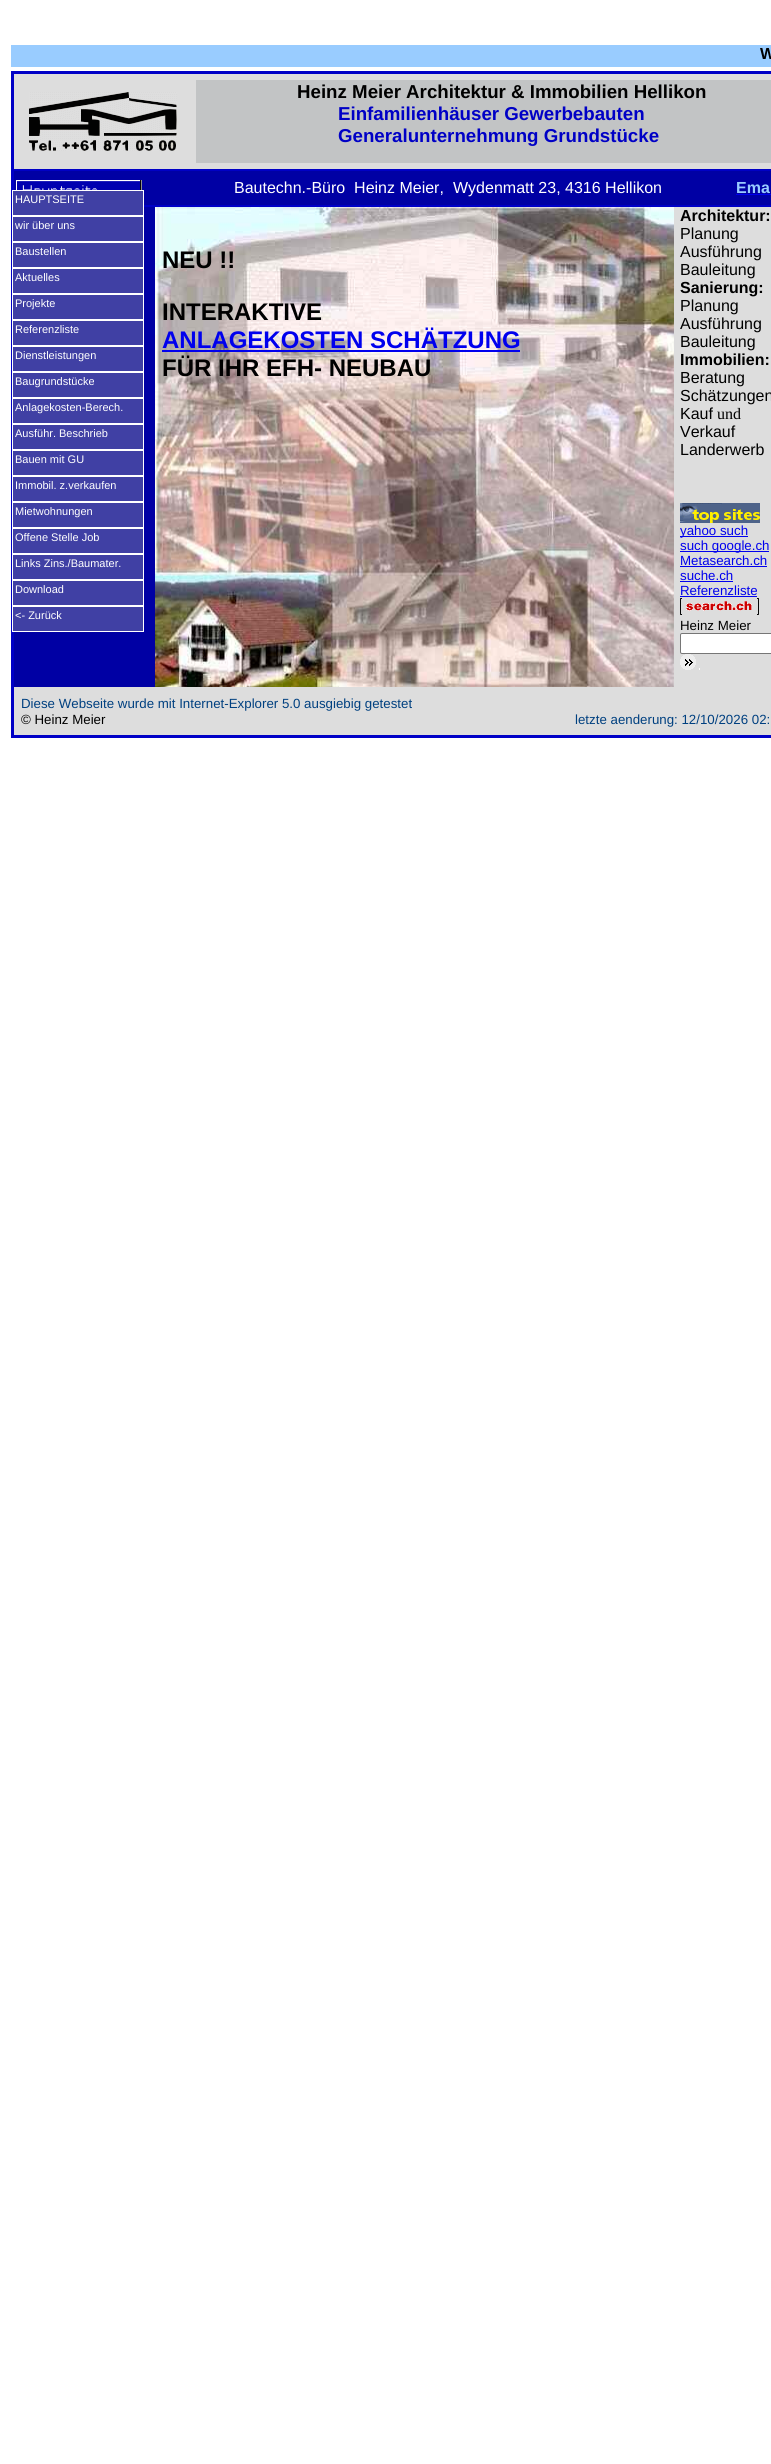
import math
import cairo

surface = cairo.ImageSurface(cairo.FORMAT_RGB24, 771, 2464)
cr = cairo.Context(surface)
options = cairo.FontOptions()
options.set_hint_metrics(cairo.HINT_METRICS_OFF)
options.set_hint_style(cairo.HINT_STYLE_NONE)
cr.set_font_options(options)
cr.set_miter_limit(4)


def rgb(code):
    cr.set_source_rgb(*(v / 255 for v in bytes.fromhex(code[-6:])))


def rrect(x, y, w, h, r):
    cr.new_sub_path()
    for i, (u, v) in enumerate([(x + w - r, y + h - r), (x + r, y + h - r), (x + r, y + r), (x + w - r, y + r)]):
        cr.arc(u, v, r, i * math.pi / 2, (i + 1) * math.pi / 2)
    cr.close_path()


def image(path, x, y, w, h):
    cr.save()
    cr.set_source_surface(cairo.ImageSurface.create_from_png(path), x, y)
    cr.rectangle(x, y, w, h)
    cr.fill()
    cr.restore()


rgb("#ffffff")
cr.paint()
rgb("#99ccff")
cr.rectangle(11, 45, 760, 22)
cr.fill()
rgb("#dddddd")
cr.rectangle(14, 74, 757, 661)
cr.fill()
cr.rectangle(12, 72, 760, 665)
rgb("#0000c6")
cr.stroke()
cr.rectangle(13.5, 73.5, 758, 96)
cr.set_line_width(1)
cr.stroke()
image("img/1.png", 29, 92, 148, 59)
rgb("#c2c4c5")
cr.rectangle(196, 80, 575, 83)
cr.fill()
cr.rectangle(13.5, 170.5, 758, 35)
rgb("#0000c6")
cr.stroke()
rgb("#0000a4")
cr.rectangle(14, 171, 2, 19)
cr.fill()
cr.rectangle(16, 171, 755, 34)
cr.fill()
image("img/2.png", 16, 180, 126, 10)
rgb("#0000ee")
cr.rectangle(736, 194, 35, 1)
cr.fill()
cr.rectangle(13.5, 206.5, 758, 529)
rgb("#0000c6")
cr.stroke()
rgb("#0000a4")
cr.rectangle(14, 207, 141, 480)
cr.fill()
image("img/3.png", 155, 207, 519, 480)
rgb("#0000ee")
cr.rectangle(162, 350, 358, 2)
cr.fill()
image("img/4.png", 680, 503, 80, 20)
for x, y, w, h, color in [
    (680, 536, 68, 1, "#0000ee"),
    (680, 551, 89, 1, "#0000ee"),
    (680, 566, 87, 1, "#0000ee"),
    (680, 581, 53, 1, "#0000ee"),
    (680, 596, 77, 1, "#0000ee"),
]:
    rgb(color)
    cr.rectangle(x, y, w, h)
    cr.fill()
image("img/5.png", 680, 598, 79, 17)
rgb("#ffffff")
rrect(680.5, 633.5, 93, 20, 1.5)
cr.fill_preserve()
rgb("#767676")
cr.stroke()
image("img/6.png", 680, 654, 16, 16)
for x, y, w, h, color in [
    (699, 668, 1, 2, "#ffffff"),
    (12, 190, 132, 442, "#ffffff"),
    (13, 191, 130, 24, "#4040a4"),
    (13, 217, 130, 24, "#4040a4"),
    (13, 243, 130, 24, "#4040a4"),
    (13, 269, 130, 24, "#4040a4"),
    (13, 295, 130, 24, "#4040a4"),
    (13, 321, 130, 24, "#4040a4"),
    (13, 347, 130, 24, "#4040a4"),
    (13, 373, 130, 24, "#4040a4"),
    (13, 399, 130, 24, "#4040a4"),
    (13, 425, 130, 24, "#4040a4"),
    (13, 451, 130, 24, "#4040a4"),
    (13, 477, 130, 24, "#4040a4"),
    (13, 503, 130, 24, "#4040a4"),
    (13, 529, 130, 24, "#4040a4"),
    (13, 555, 130, 24, "#4040a4"),
    (13, 581, 130, 24, "#4040a4"),
    (13, 607, 130, 24, "#4040a4"),
]:
    rgb(color)
    cr.rectangle(x, y, w, h)
    cr.fill()
cr.select_font_face("Liberation Sans", cairo.FONT_SLANT_NORMAL, cairo.FONT_WEIGHT_BOLD)
cr.set_font_size(16)
rgb("#000000")
cr.move_to(760, 59)
cr.show_text("W")
cr.set_font_size(18.7)
cr.move_to(297, 98)
cr.show_text("Heinz Meier Architektur & Immobilien Hellikon")
rgb("#0000c6")
cr.move_to(338, 120)
cr.show_text("Einfamilienhäuser Gewerbebauten")
cr.move_to(338, 142)
cr.show_text("Generalunternehmung Grundstücke")
cr.select_font_face("Liberation Sans")
cr.set_font_size(16)
rgb("#ffffff")
cr.move_to(234, 193)
cr.show_text("Bautechn.-Büro  Heinz Meier,")
cr.move_to(453, 193)
cr.show_text("Wydenmatt 23, 4316 Hellikon")
cr.select_font_face("Liberation Sans", cairo.FONT_SLANT_NORMAL, cairo.FONT_WEIGHT_BOLD)
rgb("#99ccff")
cr.move_to(736, 193)
cr.show_text("Ema")
cr.set_font_size(24)
rgb("#000000")
cr.move_to(162, 268)
cr.show_text("NEU !!")
cr.move_to(162, 320)
cr.show_text("INTERAKTIVE")
rgb("#0000ee")
cr.move_to(162, 348)
cr.show_text("ANLAGEKOSTEN SCHÄTZUNG")
rgb("#000000")
cr.move_to(162, 376)
cr.show_text("FÜR IHR EFH- NEUBAU")
cr.set_font_size(16)
cr.move_to(680, 221)
cr.show_text("Architektur:")
cr.select_font_face("Liberation Sans")
for x, y, s in [
    (680, 239, "Planung"),
    (680, 257, "Ausführung"),
    (680, 275, "Bauleitung"),
]:
    cr.move_to(x, y)
    cr.show_text(s)
cr.select_font_face("Liberation Sans", cairo.FONT_SLANT_NORMAL, cairo.FONT_WEIGHT_BOLD)
cr.move_to(680, 293)
cr.show_text("Sanierung:")
cr.select_font_face("Liberation Sans")
for x, y, s in [
    (680, 311, "Planung"),
    (680, 329, "Ausführung"),
    (680, 347, "Bauleitung"),
]:
    cr.move_to(x, y)
    cr.show_text(s)
cr.select_font_face("Liberation Sans", cairo.FONT_SLANT_NORMAL, cairo.FONT_WEIGHT_BOLD)
cr.move_to(680, 365)
cr.show_text("Immobilien:")
cr.select_font_face("Liberation Sans")
for x, y, s in [
    (680, 383, "Beratung"),
    (680, 401, "Schätzungen"),
    (680, 419, "Kauf"),
]:
    cr.move_to(x, y)
    cr.show_text(s)
cr.select_font_face("Liberation Serif")
cr.move_to(717, 419)
cr.show_text("und")
cr.select_font_face("Liberation Sans")
cr.move_to(680, 437)
cr.show_text("Verkauf")
cr.move_to(680, 455)
cr.show_text("Landerwerb")
cr.set_font_size(13.3)
rgb("#0000ee")
for x, y, s in [
    (680, 535, "yahoo such"),
    (680, 550, "such google.ch"),
    (680, 565, "Metasearch.ch"),
    (680, 580, "suche.ch"),
    (680, 595, "Referenzliste"),
]:
    cr.move_to(x, y)
    cr.show_text(s)
rgb("#000000")
cr.move_to(680, 630)
cr.show_text("Heinz Meier")
rgb("#004080")
cr.move_to(21, 708)
cr.show_text("Diese Webseite wurde mit Internet-Explorer 5.0 ausgiebig getestet")
rgb("#000000")
cr.move_to(21, 724)
cr.show_text("© Heinz Meier")
rgb("#004080")
cr.move_to(575, 724)
cr.show_text("letzte aenderung: 12/10/2026 02:")
cr.set_font_size(11)
rgb("#ffffff")
for x, y, s in [
    (15, 203, "HAUPTSEITE"),
    (15, 229, "wir über uns"),
    (15, 255, "Baustellen"),
    (15, 281, "Aktuelles"),
    (15, 307, "Projekte"),
    (15, 333, "Referenzliste"),
    (15, 359, "Dienstleistungen"),
    (15, 385, "Baugrundstücke"),
    (15, 411, "Anlagekosten-Berech."),
    (15, 437, "Ausführ. Beschrieb"),
    (15, 463, "Bauen mit GU"),
    (15, 489, "Immobil. z.verkaufen"),
    (15, 515, "Mietwohnungen"),
    (15, 541, "Offene Stelle Job"),
    (15, 567, "Links Zins./Baumater."),
    (15, 593, "Download"),
    (15, 619, "<- Zurück"),
]:
    cr.move_to(x, y)
    cr.show_text(s)
surface.write_to_png("page.png")
